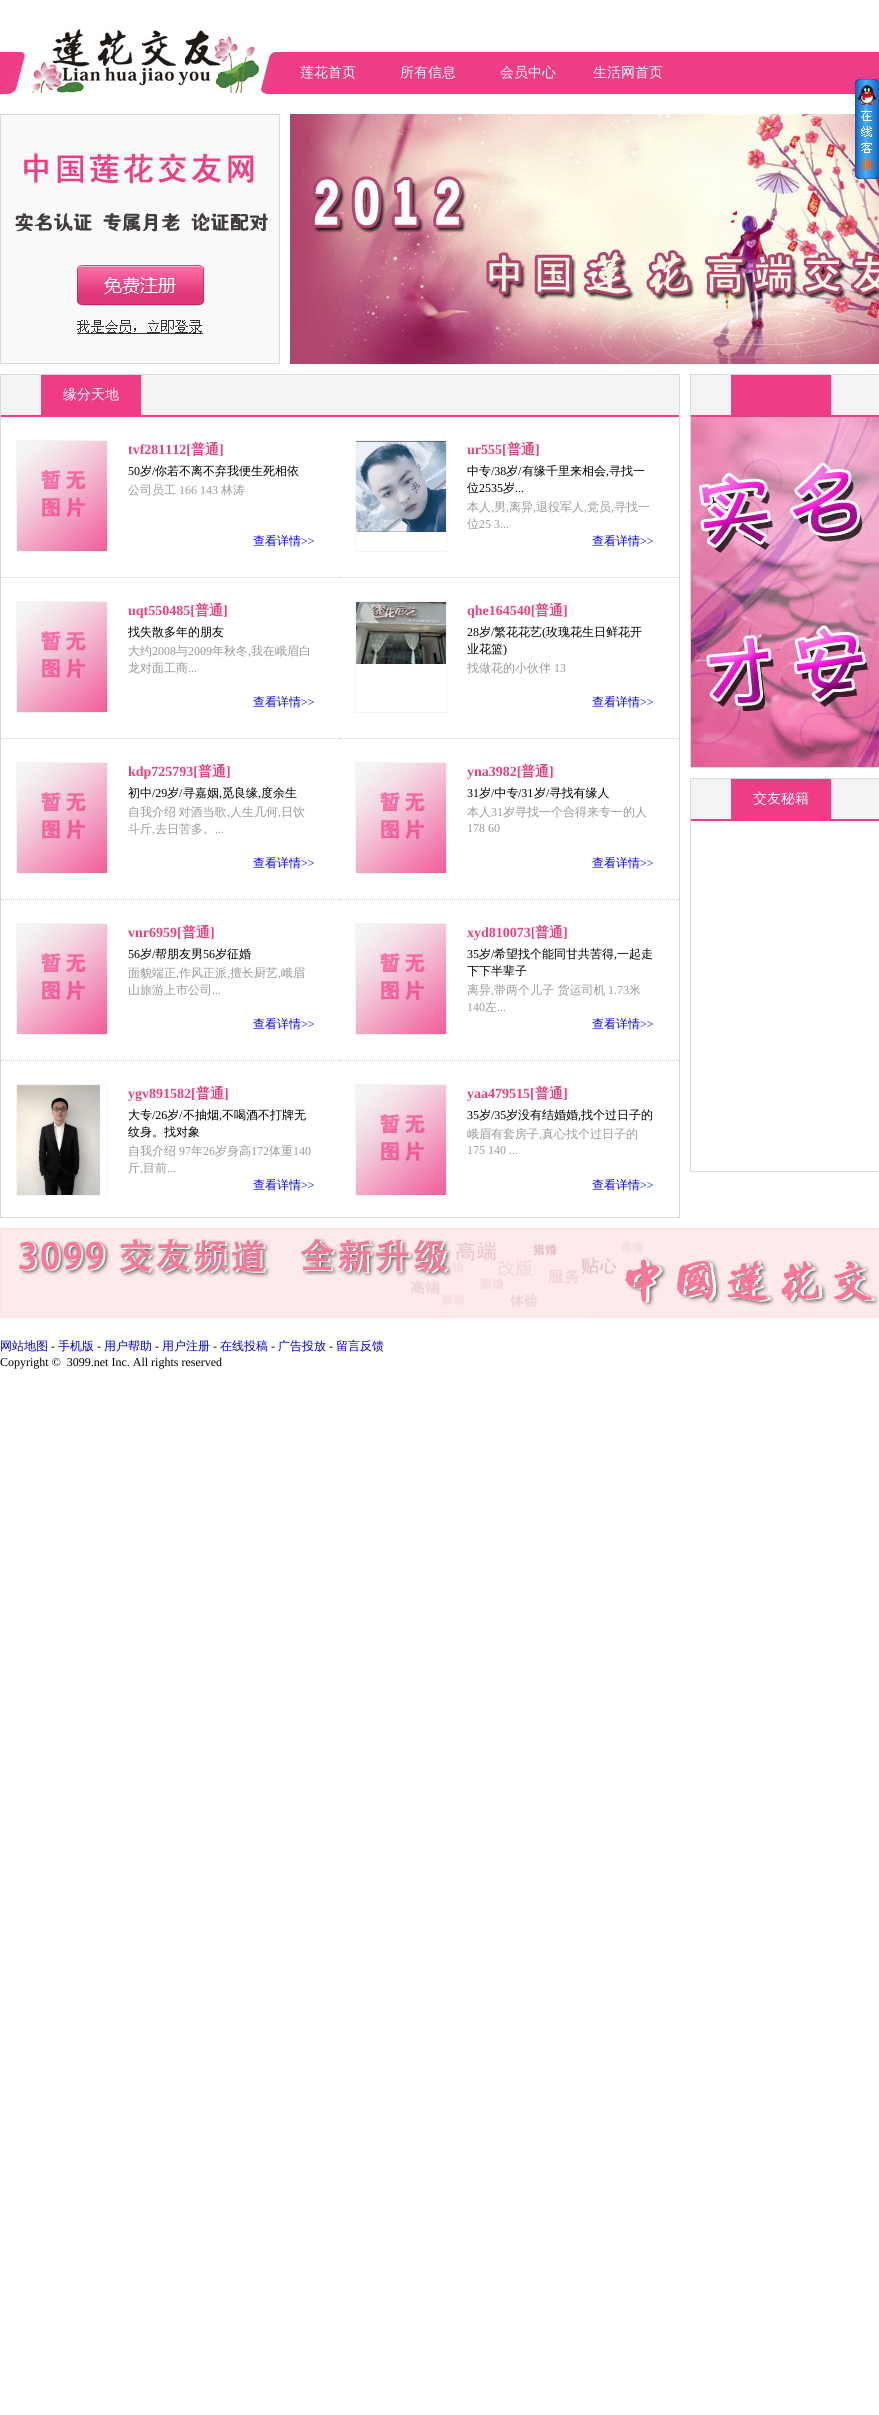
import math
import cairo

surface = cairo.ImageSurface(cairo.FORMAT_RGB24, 879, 2415)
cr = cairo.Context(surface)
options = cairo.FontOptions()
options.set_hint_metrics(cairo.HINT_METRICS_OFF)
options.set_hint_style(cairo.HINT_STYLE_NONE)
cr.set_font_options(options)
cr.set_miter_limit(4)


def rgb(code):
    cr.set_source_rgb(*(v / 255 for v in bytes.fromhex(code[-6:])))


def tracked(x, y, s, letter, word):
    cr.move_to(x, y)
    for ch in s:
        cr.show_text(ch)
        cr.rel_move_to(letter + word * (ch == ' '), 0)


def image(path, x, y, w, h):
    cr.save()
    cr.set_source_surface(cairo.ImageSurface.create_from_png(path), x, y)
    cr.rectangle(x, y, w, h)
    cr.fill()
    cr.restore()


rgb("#ffffff")
cr.paint()
image("img/1.png", 49, 26, 207, 26)
rgb("#f03b85")
cr.rectangle(0, 52, 879, 42)
cr.fill()
image("img/2.png", 8, 52, 270, 42)
image("img/3.png", 1, 115, 278, 248)
cr.rectangle(0.5, 114.5, 279, 249)
rgb("#d9d9d9")
cr.set_line_width(1)
cr.stroke()
image("img/4.png", 290, 114, 589, 250)
cr.rectangle(0.5, 374.5, 679, 843)
cr.stroke()
for x, y, w, h, color in [
    (1, 375, 678, 40, "#f4f4f4"),
    (1, 415, 678, 2, "#f03b85"),
    (41, 375, 100, 40, "#f03b85"),
]:
    rgb(color)
    cr.rectangle(x, y, w, h)
    cr.fill()
cr.new_path()
cr.move_to(1, 577.5)
cr.line_to(340, 577.5)
rgb("#cccccc")
cr.set_dash([1, 1])
cr.stroke()
cr.rectangle(16.5, 440.5, 91, 111)
rgb("#f4f4f4")
cr.set_dash([])
cr.stroke()
image("img/5.png", 17, 441, 90, 110)
cr.new_path()
cr.move_to(340, 577.5)
cr.line_to(679, 577.5)
rgb("#cccccc")
cr.set_dash([1, 1])
cr.stroke()
cr.rectangle(355.5, 440.5, 91, 111)
rgb("#f4f4f4")
cr.set_dash([])
cr.stroke()
image("img/6.png", 356, 441, 90, 91)
cr.new_path()
cr.move_to(1, 738.5)
cr.line_to(340, 738.5)
rgb("#cccccc")
cr.set_dash([1, 1])
cr.stroke()
cr.rectangle(16.5, 601.5, 91, 111)
rgb("#f4f4f4")
cr.set_dash([])
cr.stroke()
image("img/5.png", 17, 602, 90, 110)
cr.new_path()
cr.move_to(340, 738.5)
cr.line_to(679, 738.5)
rgb("#cccccc")
cr.set_dash([1, 1])
cr.stroke()
cr.rectangle(355.5, 601.5, 91, 111)
rgb("#f4f4f4")
cr.set_dash([])
cr.stroke()
image("img/7.png", 356, 602, 90, 62)
cr.new_path()
cr.move_to(1, 899.5)
cr.line_to(340, 899.5)
rgb("#cccccc")
cr.set_dash([1, 1])
cr.stroke()
cr.rectangle(16.5, 762.5, 91, 111)
rgb("#f4f4f4")
cr.set_dash([])
cr.stroke()
image("img/5.png", 17, 763, 90, 110)
cr.new_path()
cr.move_to(340, 899.5)
cr.line_to(679, 899.5)
rgb("#cccccc")
cr.set_dash([1, 1])
cr.stroke()
cr.rectangle(355.5, 762.5, 91, 111)
rgb("#f4f4f4")
cr.set_dash([])
cr.stroke()
image("img/5.png", 356, 763, 90, 110)
cr.new_path()
cr.move_to(1, 1060.5)
cr.line_to(340, 1060.5)
rgb("#cccccc")
cr.set_dash([1, 1])
cr.stroke()
cr.rectangle(16.5, 923.5, 91, 111)
rgb("#f4f4f4")
cr.set_dash([])
cr.stroke()
image("img/5.png", 17, 924, 90, 110)
cr.new_path()
cr.move_to(340, 1060.5)
cr.line_to(679, 1060.5)
rgb("#cccccc")
cr.set_dash([1, 1])
cr.stroke()
cr.rectangle(355.5, 923.5, 91, 111)
rgb("#f4f4f4")
cr.set_dash([])
cr.stroke()
image("img/5.png", 356, 924, 90, 110)
cr.rectangle(16.5, 1084.5, 91, 111)
cr.stroke()
image("img/8.png", 17, 1085, 83, 110)
cr.rectangle(355.5, 1084.5, 91, 111)
cr.stroke()
image("img/5.png", 356, 1085, 90, 110)
cr.rectangle(690.5, 374.5, 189, 393)
rgb("#d9d9d9")
cr.stroke()
for x, y, w, h, color in [
    (691, 375, 188, 40, "#f4f4f4"),
    (691, 415, 188, 2, "#f03b85"),
    (731, 375, 100, 40, "#f03b85"),
]:
    rgb(color)
    cr.rectangle(x, y, w, h)
    cr.fill()
image("img/9.png", 691, 417, 188, 350)
cr.rectangle(690.5, 778.5, 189, 393)
rgb("#d9d9d9")
cr.stroke()
for x, y, w, h, color in [
    (691, 779, 188, 40, "#f4f4f4"),
    (691, 819, 188, 2, "#f03b85"),
    (731, 779, 100, 40, "#f03b85"),
]:
    rgb(color)
    cr.rectangle(x, y, w, h)
    cr.fill()
image("img/10.png", 0, 1228, 879, 90)
image("img/11.png", 855, 79, 24, 100)
cr.select_font_face("WenQuanYi Zen Hei Medium")
cr.set_font_size(14)
rgb("#ffffff")
for x, y, s in [
    (300, 77, "莲花首页"),
    (400, 77, "所有信息"),
    (500, 77, "会员中心"),
    (593, 77, "生活网首页"),
    (63, 399, "缘分天地"),
]:
    cr.move_to(x, y)
    cr.show_text(s)
cr.select_font_face("Liberation Serif", cairo.FONT_SLANT_NORMAL, cairo.FONT_WEIGHT_BOLD)
rgb("#e7417f")
cr.move_to(128, 454)
cr.show_text("tvf281112[")
cr.select_font_face("WenQuanYi Zen Hei", cairo.FONT_SLANT_NORMAL, cairo.FONT_WEIGHT_BOLD)
cr.move_to(191, 454)
cr.show_text("普通")
cr.select_font_face("Liberation Serif", cairo.FONT_SLANT_NORMAL, cairo.FONT_WEIGHT_BOLD)
cr.move_to(219, 454)
cr.show_text("]")
cr.select_font_face("Liberation Serif")
cr.set_font_size(12)
rgb("#000000")
cr.move_to(128, 475)
cr.show_text("50")
cr.select_font_face("WenQuanYi Zen Hei Medium")
cr.move_to(140, 475)
cr.show_text("岁")
cr.select_font_face("Liberation Serif")
cr.move_to(152, 475)
cr.show_text("/")
cr.select_font_face("WenQuanYi Zen Hei Medium")
cr.move_to(155, 475)
cr.show_text("你若不离不弃我便生死相依")
rgb("#999999")
cr.move_to(128, 494)
cr.show_text("公司员工")
cr.select_font_face("Liberation Serif")
cr.move_to(179, 494)
cr.show_text("166 143")
cr.select_font_face("WenQuanYi Zen Hei Medium")
cr.move_to(221, 494)
cr.show_text("林涛")
rgb("#0000ff")
cr.move_to(253, 545)
cr.show_text("查看详情")
cr.select_font_face("Liberation Serif")
cr.move_to(301, 545)
cr.show_text(">>")
cr.select_font_face("Liberation Serif", cairo.FONT_SLANT_NORMAL, cairo.FONT_WEIGHT_BOLD)
cr.set_font_size(14)
rgb("#e7417f")
cr.move_to(467, 454)
cr.show_text("ur555[")
cr.select_font_face("WenQuanYi Zen Hei", cairo.FONT_SLANT_NORMAL, cairo.FONT_WEIGHT_BOLD)
cr.move_to(507, 454)
cr.show_text("普通")
cr.select_font_face("Liberation Serif", cairo.FONT_SLANT_NORMAL, cairo.FONT_WEIGHT_BOLD)
cr.move_to(535, 454)
cr.show_text("]")
cr.select_font_face("WenQuanYi Zen Hei Medium")
cr.set_font_size(12)
rgb("#000000")
cr.move_to(467, 475)
cr.show_text("中专")
cr.select_font_face("Liberation Serif")
cr.move_to(491, 475)
cr.show_text("/38")
cr.select_font_face("WenQuanYi Zen Hei Medium")
cr.move_to(506, 475)
cr.show_text("岁")
cr.select_font_face("Liberation Serif")
cr.move_to(518, 475)
cr.show_text("/")
cr.select_font_face("WenQuanYi Zen Hei Medium")
cr.move_to(522, 475)
cr.show_text("有缘千里来相会")
cr.select_font_face("Liberation Serif")
cr.move_to(606, 475)
cr.show_text(",")
cr.select_font_face("WenQuanYi Zen Hei Medium")
cr.move_to(609, 475)
cr.show_text("寻找一")
cr.move_to(467, 492)
cr.show_text("位")
cr.select_font_face("Liberation Serif")
cr.move_to(479, 492)
cr.show_text("2535")
cr.select_font_face("WenQuanYi Zen Hei Medium")
cr.move_to(503, 492)
cr.show_text("岁")
cr.select_font_face("Liberation Serif")
cr.move_to(515, 492)
cr.show_text("...")
cr.select_font_face("WenQuanYi Zen Hei Medium")
rgb("#999999")
cr.move_to(467, 511)
cr.show_text("本人")
cr.select_font_face("Liberation Serif")
cr.move_to(491, 511)
cr.show_text(",")
cr.select_font_face("WenQuanYi Zen Hei Medium")
cr.move_to(494, 511)
cr.show_text("男")
cr.select_font_face("Liberation Serif")
cr.move_to(506, 511)
cr.show_text(",")
cr.select_font_face("WenQuanYi Zen Hei Medium")
cr.move_to(509, 511)
cr.show_text("离异")
cr.select_font_face("Liberation Serif")
cr.move_to(533, 511)
cr.show_text(",")
cr.select_font_face("WenQuanYi Zen Hei Medium")
cr.move_to(536, 511)
cr.show_text("退役军人")
cr.select_font_face("Liberation Serif")
cr.move_to(584, 511)
cr.show_text(",")
cr.select_font_face("WenQuanYi Zen Hei Medium")
cr.move_to(587, 511)
cr.show_text("党员")
cr.select_font_face("Liberation Serif")
cr.move_to(611, 511)
cr.show_text(",")
cr.select_font_face("WenQuanYi Zen Hei Medium")
cr.move_to(614, 511)
cr.show_text("寻找一")
cr.move_to(467, 528)
cr.show_text("位")
cr.select_font_face("Liberation Serif")
cr.move_to(479, 528)
cr.show_text("25 3...")
cr.select_font_face("WenQuanYi Zen Hei Medium")
rgb("#0000ff")
cr.move_to(592, 545)
cr.show_text("查看详情")
cr.select_font_face("Liberation Serif")
cr.move_to(640, 545)
cr.show_text(">>")
cr.select_font_face("Liberation Serif", cairo.FONT_SLANT_NORMAL, cairo.FONT_WEIGHT_BOLD)
cr.set_font_size(14)
rgb("#e7417f")
cr.move_to(128, 615)
cr.show_text("uqt550485[")
cr.select_font_face("WenQuanYi Zen Hei", cairo.FONT_SLANT_NORMAL, cairo.FONT_WEIGHT_BOLD)
cr.move_to(195, 615)
cr.show_text("普通")
cr.select_font_face("Liberation Serif", cairo.FONT_SLANT_NORMAL, cairo.FONT_WEIGHT_BOLD)
cr.move_to(223, 615)
cr.show_text("]")
cr.select_font_face("WenQuanYi Zen Hei Medium")
cr.set_font_size(12)
rgb("#000000")
cr.move_to(128, 636)
cr.show_text("找失散多年的朋友")
rgb("#999999")
cr.move_to(128, 655)
cr.show_text("大约")
cr.select_font_face("Liberation Serif")
cr.move_to(152, 655)
cr.show_text("2008")
cr.select_font_face("WenQuanYi Zen Hei Medium")
cr.move_to(176, 655)
cr.show_text("与")
cr.select_font_face("Liberation Serif")
cr.move_to(188, 655)
cr.show_text("2009")
cr.select_font_face("WenQuanYi Zen Hei Medium")
cr.move_to(212, 655)
cr.show_text("年秋冬")
cr.select_font_face("Liberation Serif")
cr.move_to(248, 655)
cr.show_text(",")
cr.select_font_face("WenQuanYi Zen Hei Medium")
cr.move_to(251, 655)
cr.show_text("我在峨眉白")
cr.move_to(128, 672)
cr.show_text("龙对面工商")
cr.select_font_face("Liberation Serif")
cr.move_to(188, 672)
cr.show_text("...")
cr.select_font_face("WenQuanYi Zen Hei Medium")
rgb("#0000ff")
cr.move_to(253, 706)
cr.show_text("查看详情")
cr.select_font_face("Liberation Serif")
cr.move_to(301, 706)
cr.show_text(">>")
cr.select_font_face("Liberation Serif", cairo.FONT_SLANT_NORMAL, cairo.FONT_WEIGHT_BOLD)
cr.set_font_size(14)
rgb("#e7417f")
cr.move_to(467, 615)
cr.show_text("qhe164540[")
cr.select_font_face("WenQuanYi Zen Hei", cairo.FONT_SLANT_NORMAL, cairo.FONT_WEIGHT_BOLD)
cr.move_to(535, 615)
cr.show_text("普通")
cr.select_font_face("Liberation Serif", cairo.FONT_SLANT_NORMAL, cairo.FONT_WEIGHT_BOLD)
cr.move_to(563, 615)
cr.show_text("]")
cr.select_font_face("Liberation Serif")
cr.set_font_size(12)
rgb("#000000")
cr.move_to(467, 636)
cr.show_text("28")
cr.select_font_face("WenQuanYi Zen Hei Medium")
cr.move_to(479, 636)
cr.show_text("岁")
cr.select_font_face("Liberation Serif")
cr.move_to(491, 636)
cr.show_text("/")
cr.select_font_face("WenQuanYi Zen Hei Medium")
cr.move_to(494, 636)
cr.show_text("繁花花艺")
cr.select_font_face("Liberation Serif")
cr.move_to(542, 636)
cr.show_text("(")
cr.select_font_face("WenQuanYi Zen Hei Medium")
cr.move_to(546, 636)
cr.show_text("玫瑰花生日鲜花开")
cr.move_to(467, 653)
cr.show_text("业花篮")
cr.select_font_face("Liberation Serif")
cr.move_to(503, 653)
cr.show_text(")")
cr.select_font_face("WenQuanYi Zen Hei Medium")
rgb("#999999")
cr.move_to(467, 672)
cr.show_text("找做花的小伙伴")
cr.select_font_face("Liberation Serif")
cr.move_to(554, 672)
cr.show_text("13")
cr.select_font_face("WenQuanYi Zen Hei Medium")
rgb("#0000ff")
cr.move_to(592, 706)
cr.show_text("查看详情")
cr.select_font_face("Liberation Serif")
cr.move_to(640, 706)
cr.show_text(">>")
cr.select_font_face("Liberation Serif", cairo.FONT_SLANT_NORMAL, cairo.FONT_WEIGHT_BOLD)
cr.set_font_size(14)
rgb("#e7417f")
cr.move_to(128, 776)
cr.show_text("kdp725793[")
cr.select_font_face("WenQuanYi Zen Hei", cairo.FONT_SLANT_NORMAL, cairo.FONT_WEIGHT_BOLD)
cr.move_to(198, 776)
cr.show_text("普通")
cr.select_font_face("Liberation Serif", cairo.FONT_SLANT_NORMAL, cairo.FONT_WEIGHT_BOLD)
cr.move_to(226, 776)
cr.show_text("]")
cr.select_font_face("WenQuanYi Zen Hei Medium")
cr.set_font_size(12)
rgb("#000000")
cr.move_to(128, 797)
cr.show_text("初中")
cr.select_font_face("Liberation Serif")
cr.move_to(152, 797)
cr.show_text("/29")
cr.select_font_face("WenQuanYi Zen Hei Medium")
cr.move_to(167, 797)
cr.show_text("岁")
cr.select_font_face("Liberation Serif")
cr.move_to(179, 797)
cr.show_text("/")
cr.select_font_face("WenQuanYi Zen Hei Medium")
cr.move_to(183, 797)
cr.show_text("寻嘉姻")
cr.select_font_face("Liberation Serif")
cr.move_to(219, 797)
cr.show_text(",")
cr.select_font_face("WenQuanYi Zen Hei Medium")
cr.move_to(222, 797)
cr.show_text("觅良缘")
cr.select_font_face("Liberation Serif")
cr.move_to(258, 797)
cr.show_text(",")
cr.select_font_face("WenQuanYi Zen Hei Medium")
cr.move_to(261, 797)
cr.show_text("度余生")
rgb("#999999")
tracked(128, 816, "自我介绍 对酒当歌", 0, -1)
cr.select_font_face("Liberation Serif")
cr.move_to(227, 816)
cr.show_text(",")
cr.select_font_face("WenQuanYi Zen Hei Medium")
cr.move_to(230, 816)
cr.show_text("人生几何")
cr.select_font_face("Liberation Serif")
cr.move_to(278, 816)
cr.show_text(",")
cr.select_font_face("WenQuanYi Zen Hei Medium")
cr.move_to(281, 816)
cr.show_text("日饮")
cr.move_to(128, 833)
cr.show_text("斗斤")
cr.select_font_face("Liberation Serif")
cr.move_to(152, 833)
cr.show_text(",")
cr.select_font_face("WenQuanYi Zen Hei Medium")
cr.move_to(155, 833)
cr.show_text("去日苦多。")
cr.select_font_face("Liberation Serif")
cr.move_to(215, 833)
cr.show_text("...")
cr.select_font_face("WenQuanYi Zen Hei Medium")
rgb("#0000ff")
cr.move_to(253, 867)
cr.show_text("查看详情")
cr.select_font_face("Liberation Serif")
cr.move_to(301, 867)
cr.show_text(">>")
cr.select_font_face("Liberation Serif", cairo.FONT_SLANT_NORMAL, cairo.FONT_WEIGHT_BOLD)
cr.set_font_size(14)
rgb("#e7417f")
cr.move_to(467, 776)
cr.show_text("yna3982[")
cr.select_font_face("WenQuanYi Zen Hei", cairo.FONT_SLANT_NORMAL, cairo.FONT_WEIGHT_BOLD)
cr.move_to(521, 776)
cr.show_text("普通")
cr.select_font_face("Liberation Serif", cairo.FONT_SLANT_NORMAL, cairo.FONT_WEIGHT_BOLD)
cr.move_to(549, 776)
cr.show_text("]")
cr.select_font_face("Liberation Serif")
cr.set_font_size(12)
rgb("#000000")
cr.move_to(467, 797)
cr.show_text("31")
cr.select_font_face("WenQuanYi Zen Hei Medium")
cr.move_to(479, 797)
cr.show_text("岁 中专")
cr.move_to(534, 797)
cr.show_text("岁 寻找有缘人")
cr.select_font_face("Liberation Serif")
for x, y, s in [
    (491, 797, "/"),
    (518, 797, "/31"),
    (546, 797, "/"),
]:
    cr.move_to(x, y)
    cr.show_text(s)
cr.select_font_face("WenQuanYi Zen Hei Medium")
rgb("#999999")
cr.move_to(467, 816)
cr.show_text("本人")
cr.select_font_face("Liberation Serif")
cr.move_to(491, 816)
cr.show_text("31")
cr.select_font_face("WenQuanYi Zen Hei Medium")
cr.move_to(503, 816)
cr.show_text("岁寻找一个合得来专一的人")
cr.select_font_face("Liberation Serif")
cr.move_to(467, 832)
cr.show_text("178 60")
cr.select_font_face("WenQuanYi Zen Hei Medium")
rgb("#0000ff")
cr.move_to(592, 867)
cr.show_text("查看详情")
cr.select_font_face("Liberation Serif")
cr.move_to(640, 867)
cr.show_text(">>")
cr.select_font_face("Liberation Serif", cairo.FONT_SLANT_NORMAL, cairo.FONT_WEIGHT_BOLD)
cr.set_font_size(14)
rgb("#e7417f")
cr.move_to(128, 937)
cr.show_text("vnr6959[")
cr.select_font_face("WenQuanYi Zen Hei", cairo.FONT_SLANT_NORMAL, cairo.FONT_WEIGHT_BOLD)
cr.move_to(182, 937)
cr.show_text("普通")
cr.select_font_face("Liberation Serif", cairo.FONT_SLANT_NORMAL, cairo.FONT_WEIGHT_BOLD)
cr.move_to(210, 937)
cr.show_text("]")
cr.select_font_face("Liberation Serif")
cr.set_font_size(12)
rgb("#000000")
cr.move_to(128, 958)
cr.show_text("56")
cr.select_font_face("WenQuanYi Zen Hei Medium")
cr.move_to(140, 958)
cr.show_text("岁")
cr.select_font_face("Liberation Serif")
cr.move_to(152, 958)
cr.show_text("/")
cr.select_font_face("WenQuanYi Zen Hei Medium")
cr.move_to(155, 958)
cr.show_text("帮朋友男")
cr.select_font_face("Liberation Serif")
cr.move_to(203, 958)
cr.show_text("56")
cr.select_font_face("WenQuanYi Zen Hei Medium")
cr.move_to(215, 958)
cr.show_text("岁征婚")
rgb("#999999")
cr.move_to(128, 977)
cr.show_text("面貌端正")
cr.select_font_face("Liberation Serif")
cr.move_to(176, 977)
cr.show_text(",")
cr.select_font_face("WenQuanYi Zen Hei Medium")
cr.move_to(179, 977)
cr.show_text("作风正派")
cr.select_font_face("Liberation Serif")
cr.move_to(227, 977)
cr.show_text(",")
cr.select_font_face("WenQuanYi Zen Hei Medium")
cr.move_to(230, 977)
cr.show_text("擅长厨艺")
cr.select_font_face("Liberation Serif")
cr.move_to(278, 977)
cr.show_text(",")
cr.select_font_face("WenQuanYi Zen Hei Medium")
cr.move_to(281, 977)
cr.show_text("峨眉")
cr.move_to(128, 994)
cr.show_text("山旅游上市公司")
cr.select_font_face("Liberation Serif")
cr.move_to(212, 994)
cr.show_text("...")
cr.select_font_face("WenQuanYi Zen Hei Medium")
rgb("#0000ff")
cr.move_to(253, 1028)
cr.show_text("查看详情")
cr.select_font_face("Liberation Serif")
cr.move_to(301, 1028)
cr.show_text(">>")
cr.select_font_face("Liberation Serif", cairo.FONT_SLANT_NORMAL, cairo.FONT_WEIGHT_BOLD)
cr.set_font_size(14)
rgb("#e7417f")
cr.move_to(467, 937)
cr.show_text("xyd810073[")
cr.select_font_face("WenQuanYi Zen Hei", cairo.FONT_SLANT_NORMAL, cairo.FONT_WEIGHT_BOLD)
cr.move_to(535, 937)
cr.show_text("普通")
cr.select_font_face("Liberation Serif", cairo.FONT_SLANT_NORMAL, cairo.FONT_WEIGHT_BOLD)
cr.move_to(563, 937)
cr.show_text("]")
cr.select_font_face("Liberation Serif")
cr.set_font_size(12)
rgb("#000000")
cr.move_to(467, 958)
cr.show_text("35")
cr.select_font_face("WenQuanYi Zen Hei Medium")
cr.move_to(479, 958)
cr.show_text("岁")
cr.select_font_face("Liberation Serif")
cr.move_to(491, 958)
cr.show_text("/")
cr.select_font_face("WenQuanYi Zen Hei Medium")
cr.move_to(494, 958)
cr.show_text("希望找个能同甘共苦得")
cr.select_font_face("Liberation Serif")
cr.move_to(614, 958)
cr.show_text(",")
cr.select_font_face("WenQuanYi Zen Hei Medium")
cr.move_to(617, 958)
cr.show_text("一起走")
cr.move_to(467, 975)
cr.show_text("下下半辈子")
rgb("#999999")
cr.move_to(467, 994)
cr.show_text("离异")
cr.select_font_face("Liberation Serif")
cr.move_to(491, 994)
cr.show_text(",")
cr.select_font_face("WenQuanYi Zen Hei Medium")
cr.move_to(494, 994)
cr.show_text("带两个儿子 货运司机")
cr.select_font_face("Liberation Serif")
cr.move_to(608, 994)
cr.show_text("1.73")
cr.select_font_face("WenQuanYi Zen Hei Medium")
cr.move_to(629, 994)
cr.show_text("米")
cr.select_font_face("Liberation Serif")
cr.move_to(467, 1011)
cr.show_text("140")
cr.select_font_face("WenQuanYi Zen Hei Medium")
cr.move_to(485, 1011)
cr.show_text("左")
cr.select_font_face("Liberation Serif")
cr.move_to(497, 1011)
cr.show_text("...")
cr.select_font_face("WenQuanYi Zen Hei Medium")
rgb("#0000ff")
cr.move_to(592, 1028)
cr.show_text("查看详情")
cr.select_font_face("Liberation Serif")
cr.move_to(640, 1028)
cr.show_text(">>")
cr.select_font_face("Liberation Serif", cairo.FONT_SLANT_NORMAL, cairo.FONT_WEIGHT_BOLD)
cr.set_font_size(14)
rgb("#e7417f")
cr.move_to(128, 1098)
cr.show_text("ygv891582[")
cr.select_font_face("WenQuanYi Zen Hei", cairo.FONT_SLANT_NORMAL, cairo.FONT_WEIGHT_BOLD)
cr.move_to(196, 1098)
cr.show_text("普通")
cr.select_font_face("Liberation Serif", cairo.FONT_SLANT_NORMAL, cairo.FONT_WEIGHT_BOLD)
cr.move_to(224, 1098)
cr.show_text("]")
cr.select_font_face("WenQuanYi Zen Hei Medium")
cr.set_font_size(12)
rgb("#000000")
cr.move_to(128, 1119)
cr.show_text("大专")
cr.select_font_face("Liberation Serif")
cr.move_to(152, 1119)
cr.show_text("/26")
cr.select_font_face("WenQuanYi Zen Hei Medium")
cr.move_to(167, 1119)
cr.show_text("岁")
cr.select_font_face("Liberation Serif")
cr.move_to(179, 1119)
cr.show_text("/")
cr.select_font_face("WenQuanYi Zen Hei Medium")
cr.move_to(183, 1119)
cr.show_text("不抽烟")
cr.select_font_face("Liberation Serif")
cr.move_to(219, 1119)
cr.show_text(",")
cr.select_font_face("WenQuanYi Zen Hei Medium")
cr.move_to(222, 1119)
cr.show_text("不喝酒不打牌无")
cr.move_to(128, 1136)
cr.show_text("纹身。找对象")
rgb("#999999")
cr.move_to(128, 1155)
cr.show_text("自我介绍")
cr.select_font_face("Liberation Serif")
cr.move_to(179, 1155)
cr.show_text("97")
cr.select_font_face("WenQuanYi Zen Hei Medium")
cr.move_to(191, 1155)
cr.show_text("年")
cr.select_font_face("Liberation Serif")
cr.move_to(203, 1155)
cr.show_text("26")
cr.select_font_face("WenQuanYi Zen Hei Medium")
cr.move_to(215, 1155)
cr.show_text("岁身高")
cr.select_font_face("Liberation Serif")
cr.move_to(251, 1155)
cr.show_text("172")
cr.select_font_face("WenQuanYi Zen Hei Medium")
cr.move_to(269, 1155)
cr.show_text("体重")
cr.select_font_face("Liberation Serif")
cr.move_to(293, 1155)
cr.show_text("140")
cr.select_font_face("WenQuanYi Zen Hei Medium")
cr.move_to(128, 1172)
cr.show_text("斤")
cr.select_font_face("Liberation Serif")
cr.move_to(140, 1172)
cr.show_text(",")
cr.select_font_face("WenQuanYi Zen Hei Medium")
cr.move_to(143, 1172)
cr.show_text("目前")
cr.select_font_face("Liberation Serif")
cr.move_to(167, 1172)
cr.show_text("...")
cr.select_font_face("WenQuanYi Zen Hei Medium")
rgb("#0000ff")
cr.move_to(253, 1189)
cr.show_text("查看详情")
cr.select_font_face("Liberation Serif")
cr.move_to(301, 1189)
cr.show_text(">>")
cr.select_font_face("Liberation Serif", cairo.FONT_SLANT_NORMAL, cairo.FONT_WEIGHT_BOLD)
cr.set_font_size(14)
rgb("#e7417f")
cr.move_to(467, 1098)
cr.show_text("yaa479515[")
cr.select_font_face("WenQuanYi Zen Hei", cairo.FONT_SLANT_NORMAL, cairo.FONT_WEIGHT_BOLD)
cr.move_to(535, 1098)
cr.show_text("普通")
cr.select_font_face("Liberation Serif", cairo.FONT_SLANT_NORMAL, cairo.FONT_WEIGHT_BOLD)
cr.move_to(563, 1098)
cr.show_text("]")
cr.select_font_face("Liberation Serif")
cr.set_font_size(12)
rgb("#000000")
cr.move_to(467, 1119)
cr.show_text("35")
cr.select_font_face("WenQuanYi Zen Hei Medium")
cr.move_to(479, 1119)
cr.show_text("岁")
cr.select_font_face("Liberation Serif")
cr.move_to(491, 1119)
cr.show_text("/35")
cr.select_font_face("WenQuanYi Zen Hei Medium")
cr.move_to(506, 1119)
cr.show_text("岁没有结婚婚")
cr.select_font_face("Liberation Serif")
cr.move_to(578, 1119)
cr.show_text(",")
cr.select_font_face("WenQuanYi Zen Hei Medium")
cr.move_to(581, 1119)
cr.show_text("找个过日子的")
rgb("#999999")
cr.move_to(467, 1138)
cr.show_text("峨眉有套房子")
cr.select_font_face("Liberation Serif")
cr.move_to(539, 1138)
cr.show_text(",")
cr.select_font_face("WenQuanYi Zen Hei Medium")
cr.move_to(542, 1138)
cr.show_text("真心找个过日子的")
cr.select_font_face("Liberation Serif")
cr.move_to(467, 1154)
cr.show_text("175 140 ...")
cr.select_font_face("WenQuanYi Zen Hei Medium")
rgb("#0000ff")
cr.move_to(592, 1189)
cr.show_text("查看详情")
cr.select_font_face("Liberation Serif")
cr.move_to(640, 1189)
cr.show_text(">>")
cr.select_font_face("WenQuanYi Zen Hei Medium")
cr.set_font_size(14)
rgb("#ffffff")
cr.move_to(753, 803)
cr.show_text("交友秘籍")
cr.set_font_size(12)
rgb("#0000ee")
cr.move_to(0, 1350)
cr.show_text("网站地图")
cr.select_font_face("Liberation Serif")
rgb("#000000")
cr.move_to(51, 1350)
cr.show_text("-")
cr.select_font_face("WenQuanYi Zen Hei Medium")
rgb("#0000ee")
cr.move_to(58, 1350)
cr.show_text("手机版")
cr.select_font_face("Liberation Serif")
rgb("#000000")
cr.move_to(97, 1350)
cr.show_text("-")
cr.select_font_face("WenQuanYi Zen Hei Medium")
rgb("#0000ee")
cr.move_to(104, 1350)
cr.show_text("用户帮助")
cr.select_font_face("Liberation Serif")
rgb("#000000")
cr.move_to(155, 1350)
cr.show_text("-")
cr.select_font_face("WenQuanYi Zen Hei Medium")
rgb("#0000ee")
cr.move_to(162, 1350)
cr.show_text("用户注册")
cr.select_font_face("Liberation Serif")
rgb("#000000")
cr.move_to(213, 1350)
cr.show_text("-")
cr.select_font_face("WenQuanYi Zen Hei Medium")
rgb("#0000ee")
cr.move_to(220, 1350)
cr.show_text("在线投稿")
cr.select_font_face("Liberation Serif")
rgb("#000000")
cr.move_to(271, 1350)
cr.show_text("-")
cr.select_font_face("WenQuanYi Zen Hei Medium")
rgb("#0000ee")
cr.move_to(278, 1350)
cr.show_text("广告投放")
cr.select_font_face("Liberation Serif")
rgb("#000000")
cr.move_to(329, 1350)
cr.show_text("-")
cr.select_font_face("WenQuanYi Zen Hei Medium")
rgb("#0000ee")
cr.move_to(336, 1350)
cr.show_text("留言反馈")
cr.select_font_face("Liberation Serif")
rgb("#000000")
cr.move_to(0, 1366)
cr.show_text("Copyright ©  3099.net Inc. All rights reserved")
surface.write_to_png("page.png")
